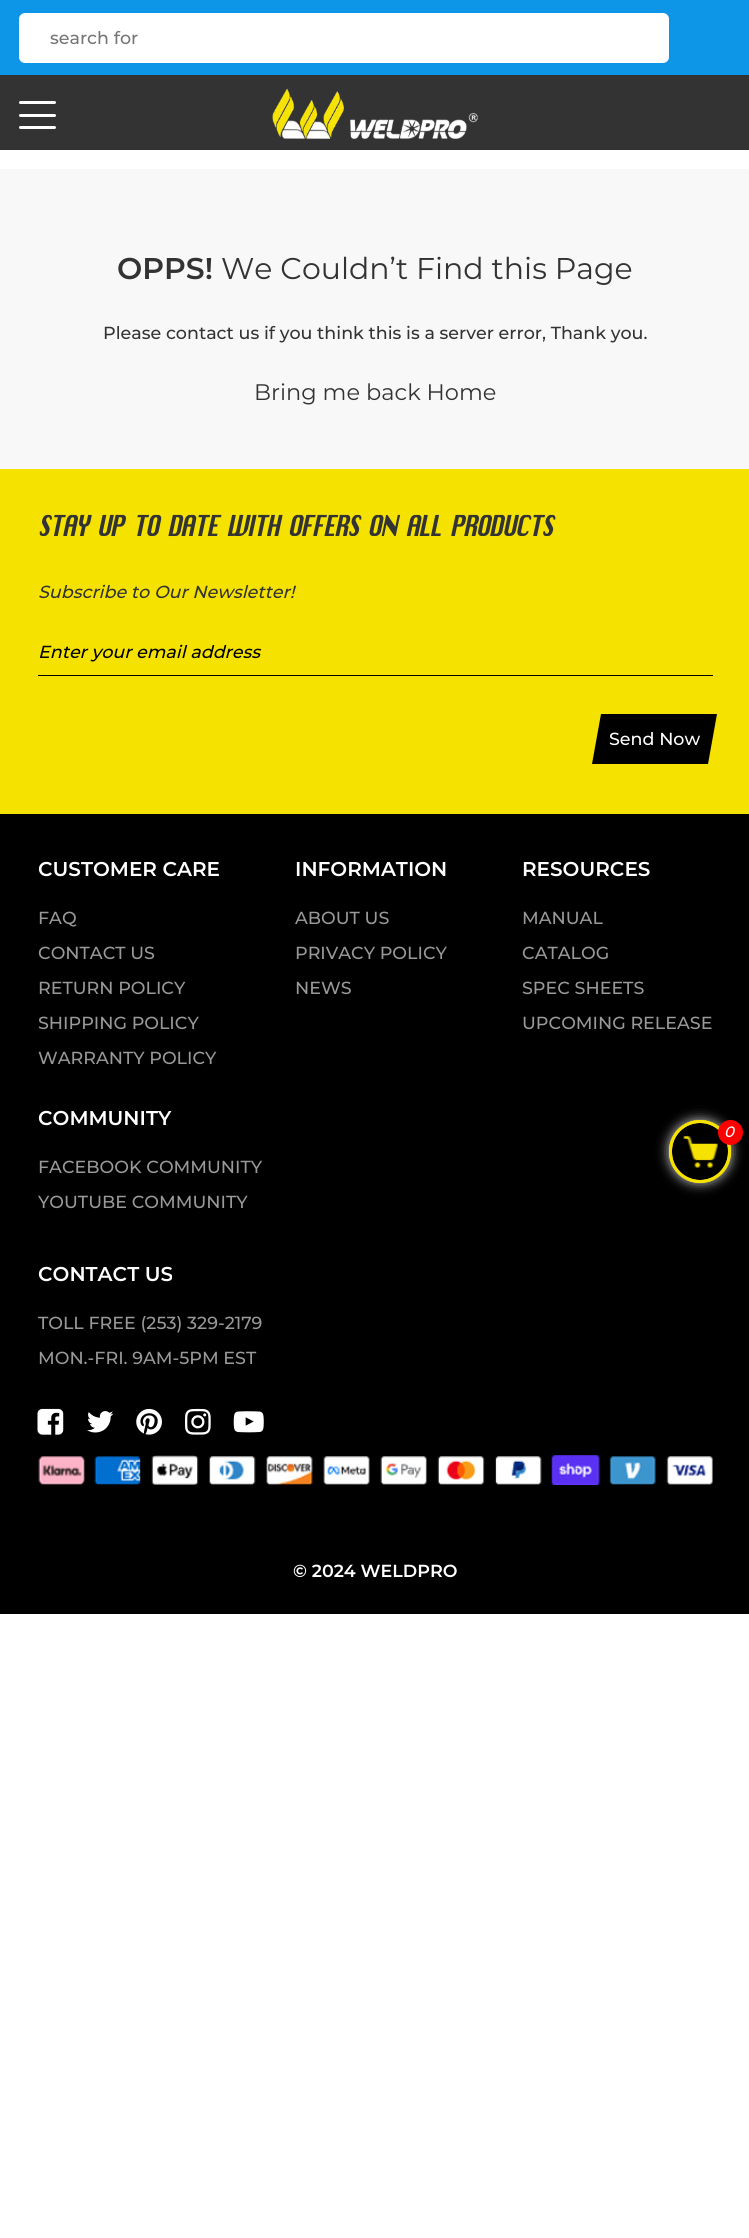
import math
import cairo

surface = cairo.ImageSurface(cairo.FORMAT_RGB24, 749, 2238)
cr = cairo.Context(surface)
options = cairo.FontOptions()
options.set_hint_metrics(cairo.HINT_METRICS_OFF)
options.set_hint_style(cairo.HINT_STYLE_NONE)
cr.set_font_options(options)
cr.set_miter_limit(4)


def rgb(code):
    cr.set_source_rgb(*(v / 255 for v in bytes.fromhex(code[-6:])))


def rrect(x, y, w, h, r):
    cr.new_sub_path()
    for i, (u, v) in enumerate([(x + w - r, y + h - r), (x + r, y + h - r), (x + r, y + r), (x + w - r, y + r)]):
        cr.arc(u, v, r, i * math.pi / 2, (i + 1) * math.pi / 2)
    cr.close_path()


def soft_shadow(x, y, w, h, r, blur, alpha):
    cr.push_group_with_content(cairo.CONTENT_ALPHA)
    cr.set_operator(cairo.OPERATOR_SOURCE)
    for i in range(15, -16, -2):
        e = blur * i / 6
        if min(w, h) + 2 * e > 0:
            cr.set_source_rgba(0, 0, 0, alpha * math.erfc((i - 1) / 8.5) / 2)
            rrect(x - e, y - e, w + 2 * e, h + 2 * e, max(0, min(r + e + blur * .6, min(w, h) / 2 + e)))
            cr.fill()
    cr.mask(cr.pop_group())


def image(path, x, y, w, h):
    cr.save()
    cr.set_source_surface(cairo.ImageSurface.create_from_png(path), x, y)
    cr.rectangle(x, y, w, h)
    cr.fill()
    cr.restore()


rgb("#ffffff")
cr.paint()
rgb("#0d95e8")
cr.rectangle(0, 0, 749, 75)
cr.fill()
rgb("#ffffff")
rrect(19, 13, 650, 50, 6)
cr.fill()
rgb("#333333")
cr.rectangle(0, 75, 749, 75)
cr.fill()
rgb("#ffffff")
rrect(19, 101, 37, 3, 1.5)
cr.fill()
rrect(19, 114, 37, 3, 1.5)
cr.fill()
rrect(19, 126, 37, 3, 1.5)
cr.fill()
image("img/1.png", 272, 88, 206, 51)
rgb("#000000")
cr.rectangle(0, 814, 749, 800)
cr.fill()
rgb("#cccccc")
soft_shadow(669, 1120, 62, 63, 31, 6, 1)
rgb("#000000")
rrect(670.5, 1121.5, 59, 60, 29.5)
cr.fill_preserve()
rgb("#f6e200")
cr.set_line_width(3)
cr.stroke()
rrect(670.5, 1121.5, 59, 60, 29.5)
cr.stroke()
rgb("#ff0000")
cr.arc(730.5, 1132.5, 12.5, 0, 2 * math.pi)
cr.fill()
image("img/2.png", 683, 1136, 35, 32)
for x, y, w, h, color in [
    (0, 169, 749, 300, "#f8f8f8"),
    (0, 469, 749, 345, "#f6e200"),
    (38, 675, 675, 1, "#000000"),
]:
    rgb(color)
    cr.rectangle(x, y, w, h)
    cr.fill()
cr.new_path()
cr.move_to(601, 714)
cr.line_to(717, 714)
cr.line_to(708, 764)
cr.line_to(592, 764)
cr.close_path()
cr.fill()
image("img/3.png", 37, 1408, 27, 27)
image("img/4.png", 87, 1411, 27, 22)
image("img/5.png", 136, 1408, 26, 27)
image("img/6.png", 185, 1408, 26, 27)
image("img/7.png", 233, 1411, 31, 22)
image("img/8.png", 38, 1455, 675, 30)
cr.select_font_face("Montserrat Medium")
cr.set_font_size(17.5)
rgb("#757575")
cr.move_to(50, 44)
cr.show_text("search for")
cr.select_font_face("Montserrat Medium", cairo.FONT_SLANT_ITALIC)
cr.set_font_size(15)
rgb("#ffffff")
cr.move_to(724, 1137)
cr.show_text("0")
cr.select_font_face("Montserrat SemiBold")
cr.set_font_size(30)
rgb("#333333")
cr.move_to(117, 279)
cr.show_text("OPPS!")
cr.select_font_face("Montserrat")
cr.move_to(221, 279)
cr.show_text("We Couldn’t Find this Page")
cr.select_font_face("Montserrat Medium")
cr.set_font_size(17.5)
cr.move_to(103, 339)
cr.show_text("Please contact us if you think this is a server error, Thank you.")
cr.select_font_face("Montserrat")
cr.set_font_size(22.5)
cr.move_to(254, 400)
cr.show_text("Bring me back Home")
cr.select_font_face("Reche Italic", cairo.FONT_SLANT_ITALIC)
cr.move_to(38, 536)
cr.show_text("STAY UP TO DATE WITH OFFERS ON ALL PRODUCTS")
cr.select_font_face("Montserrat Medium", cairo.FONT_SLANT_ITALIC)
cr.set_font_size(17.5)
cr.move_to(38, 598)
cr.show_text("Subscribe to Our Newsletter!")
rgb("#000000")
cr.move_to(38, 658)
cr.show_text("Enter your email address")
cr.select_font_face("Montserrat Medium")
rgb("#ffffff")
cr.move_to(609, 745)
cr.show_text("Send Now")
cr.select_font_face("Montserrat SemiBold")
cr.set_font_size(20)
cr.move_to(38, 876)
cr.show_text("CUSTOMER CARE")
cr.select_font_face("Montserrat Medium")
cr.set_font_size(17.5)
rgb("#999999")
for x, y, s in [
    (38, 924, "FAQ"),
    (38, 959, "CONTACT US"),
    (38, 994, "RETURN POLICY"),
    (38, 1029, "SHIPPING POLICY"),
    (38, 1064, "WARRANTY POLICY"),
]:
    cr.move_to(x, y)
    cr.show_text(s)
cr.select_font_face("Montserrat SemiBold")
cr.set_font_size(20)
rgb("#ffffff")
cr.move_to(295, 876)
cr.show_text("INFORMATION")
cr.select_font_face("Montserrat Medium")
cr.set_font_size(17.5)
rgb("#999999")
for x, y, s in [
    (295, 924, "ABOUT US"),
    (295, 959, "PRIVACY POLICY"),
    (295, 994, "NEWS"),
]:
    cr.move_to(x, y)
    cr.show_text(s)
cr.select_font_face("Montserrat SemiBold")
cr.set_font_size(20)
rgb("#ffffff")
cr.move_to(522, 876)
cr.show_text("RESOURCES")
cr.select_font_face("Montserrat Medium")
cr.set_font_size(17.5)
rgb("#999999")
for x, y, s in [
    (522, 924, "MANUAL"),
    (522, 959, "CATALOG"),
    (522, 994, "SPEC SHEETS"),
    (522, 1029, "UPCOMING RELEASE"),
]:
    cr.move_to(x, y)
    cr.show_text(s)
cr.select_font_face("Montserrat SemiBold")
cr.set_font_size(20)
rgb("#ffffff")
cr.move_to(38, 1125)
cr.show_text("COMMUNITY")
cr.select_font_face("Montserrat Medium")
cr.set_font_size(17.5)
rgb("#999999")
cr.move_to(38, 1173)
cr.show_text("FACEBOOK COMMUNITY")
cr.move_to(38, 1208)
cr.show_text("YOUTUBE COMMUNITY")
cr.select_font_face("Montserrat SemiBold")
cr.set_font_size(20)
rgb("#ffffff")
cr.move_to(38, 1281)
cr.show_text("CONTACT US")
cr.select_font_face("Montserrat Medium")
cr.set_font_size(17.5)
rgb("#999999")
cr.move_to(38, 1329)
cr.show_text("TOLL FREE (253) 329-2179")
cr.move_to(38, 1364)
cr.show_text("MON.-FRI. 9AM-5PM EST")
cr.select_font_face("Montserrat SemiBold")
rgb("#ffffff")
cr.move_to(293, 1577)
cr.show_text("© 2024 WELDPRO")
surface.write_to_png("page.png")
